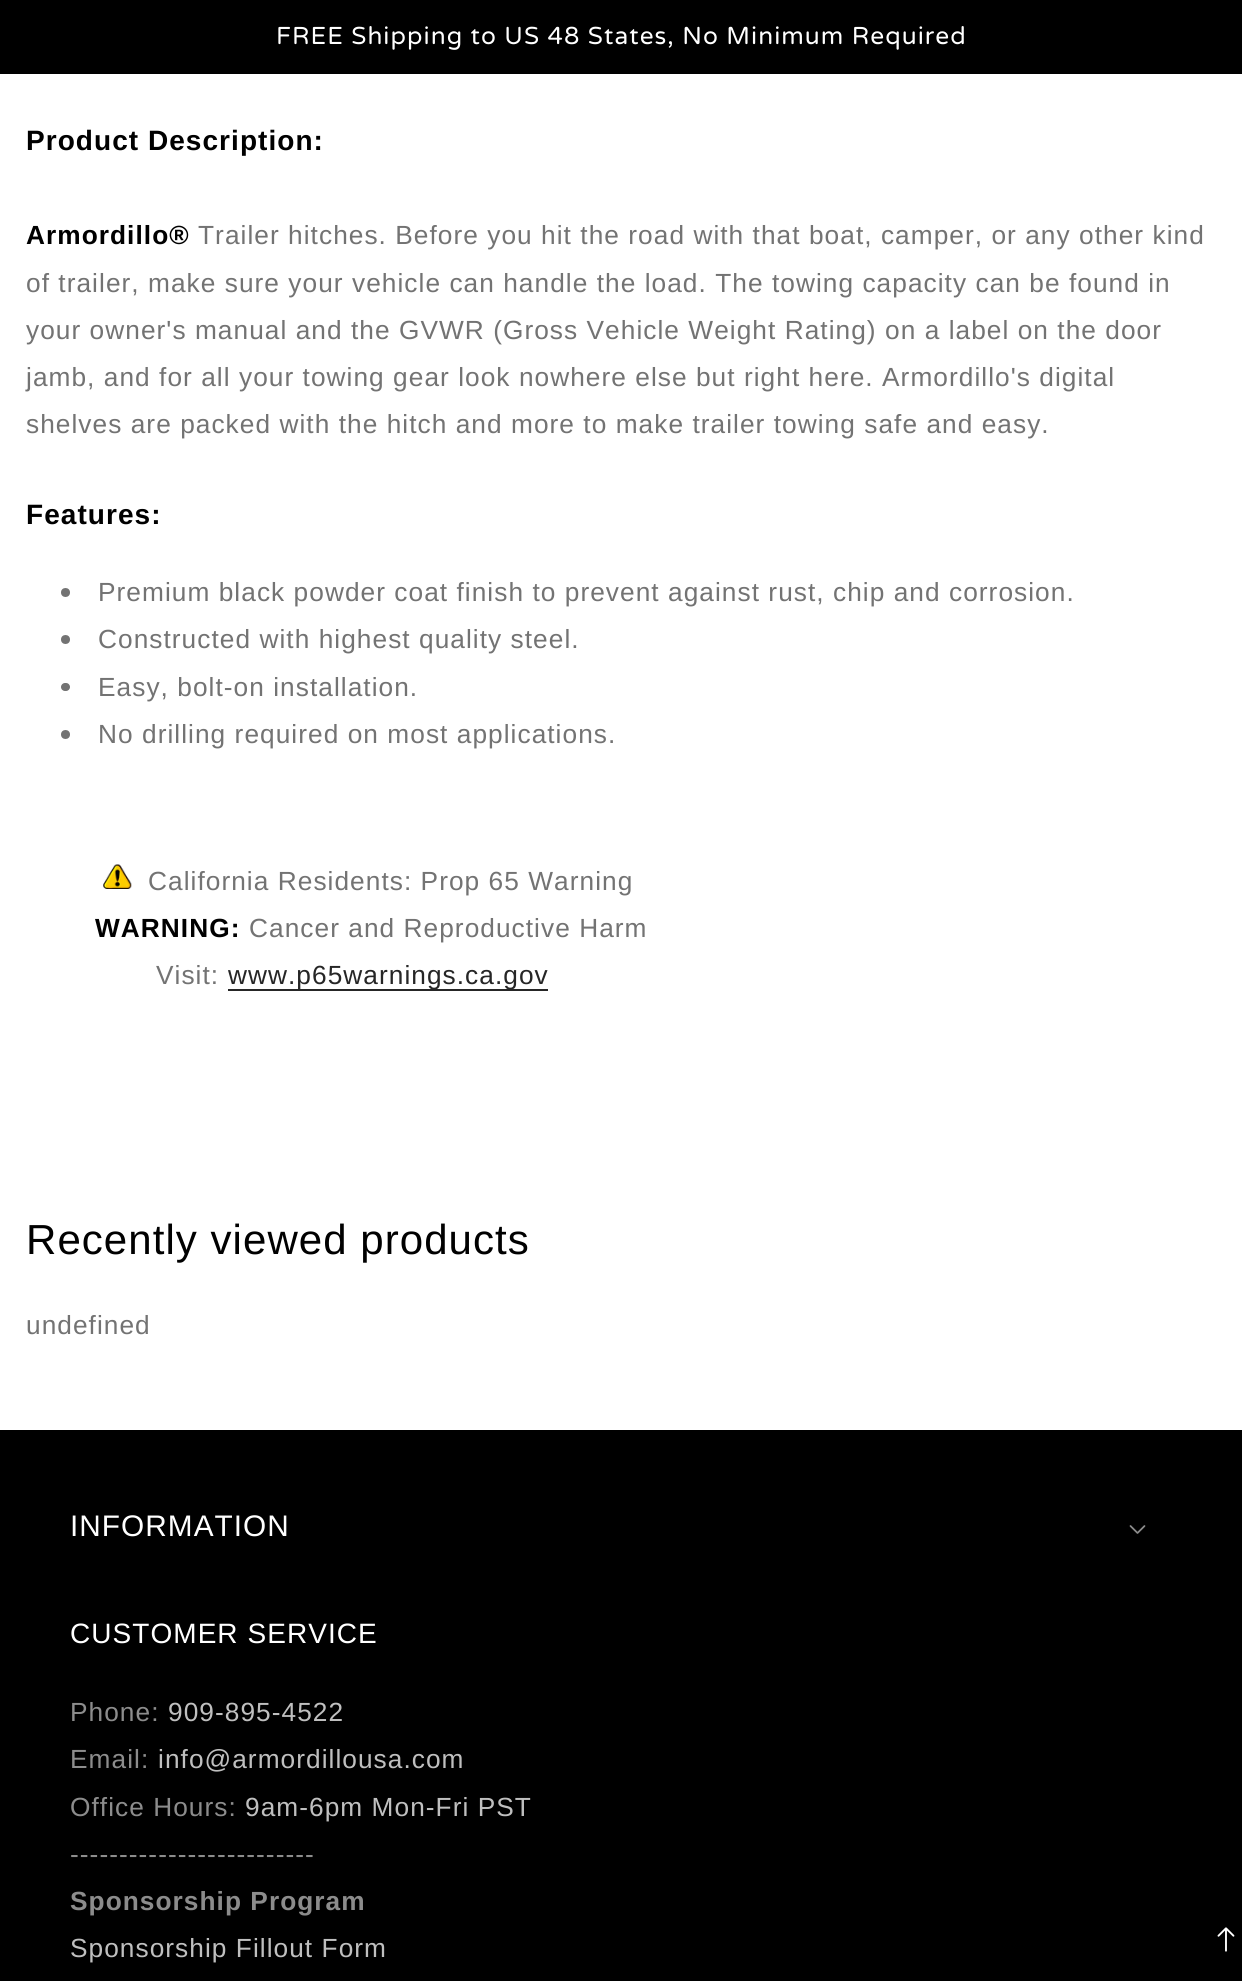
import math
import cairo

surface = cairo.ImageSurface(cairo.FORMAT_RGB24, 1242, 1981)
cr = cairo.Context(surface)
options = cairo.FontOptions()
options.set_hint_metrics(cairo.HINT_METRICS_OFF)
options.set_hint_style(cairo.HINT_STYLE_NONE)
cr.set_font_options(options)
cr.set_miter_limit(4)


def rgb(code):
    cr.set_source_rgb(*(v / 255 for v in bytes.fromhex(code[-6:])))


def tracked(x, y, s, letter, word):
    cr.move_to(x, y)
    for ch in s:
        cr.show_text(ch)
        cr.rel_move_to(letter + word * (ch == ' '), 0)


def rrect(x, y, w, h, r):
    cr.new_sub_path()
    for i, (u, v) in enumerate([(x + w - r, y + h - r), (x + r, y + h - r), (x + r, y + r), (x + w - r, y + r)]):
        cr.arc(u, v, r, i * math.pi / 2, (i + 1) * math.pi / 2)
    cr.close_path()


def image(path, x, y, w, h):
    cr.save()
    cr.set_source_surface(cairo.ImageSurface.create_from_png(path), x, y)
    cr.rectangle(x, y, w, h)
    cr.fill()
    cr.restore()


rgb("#ffffff")
cr.paint()
rgb("#000000")
cr.rectangle(0, 0, 1242, 74)
cr.fill()
rgb("#737373")
cr.arc(65.5, 592.5, 4.5, 0, 2 * math.pi)
cr.fill()
cr.arc(65.5, 639.5, 4.5, 0, 2 * math.pi)
cr.fill()
rrect(61, 683, 9, 8, 4)
cr.fill()
cr.arc(65.5, 734.5, 4.5, 0, 2 * math.pi)
cr.fill()
image("img/1.png", 103, 864, 29, 25)
rgb("#262626")
cr.rectangle(228, 989, 320, 2)
cr.fill()
rgb("#000000")
cr.rectangle(0, 1430, 1242, 551)
cr.fill()
image("img/2.png", 1129, 1525, 17, 9)
image("img/3.png", 1217, 1927, 18, 25)
cr.select_font_face("Varela Round")
cr.set_font_size(24.5)
rgb("#ffffff")
tracked(276, 44, "FREE Shipping to US 48 States, No Minimum Required", 1.05, 0)
cr.select_font_face("Arimo", cairo.FONT_SLANT_NORMAL, cairo.FONT_WEIGHT_BOLD)
cr.set_font_size(28)
rgb("#000000")
tracked(26, 150, "Product Description:", 1.05, 0)
cr.set_font_size(26.25)
tracked(26, 244, "Armordillo®", 1.05, 0)
cr.select_font_face("Arimo")
rgb("#737373")
for x, y, s in [
    (198, 244, "Trailer hitches. Before you hit the road with that boat, camper, or any other kind"),
    (26, 292, "of trailer, make sure your vehicle can handle the load. The towing capacity can be found in"),
    (26, 339, "your owner's manual and the GVWR (Gross Vehicle Weight Rating) on a label on the door"),
    (26, 386, "jamb, and for all your towing gear look nowhere else but right here. Armordillo's digital"),
    (26, 433, "shelves are packed with the hitch and more to make trailer towing safe and easy."),
]:
    tracked(x, y, s, 1.05, 0)
cr.select_font_face("Arimo", cairo.FONT_SLANT_NORMAL, cairo.FONT_WEIGHT_BOLD)
cr.set_font_size(28)
rgb("#000000")
tracked(26, 524, "Features:", 1.05, 0)
cr.select_font_face("Arimo")
cr.set_font_size(26.25)
rgb("#737373")
for x, y, s in [
    (98, 601, "Premium black powder coat finish to prevent against rust, chip and corrosion."),
    (98, 648, "Constructed with highest quality steel."),
    (98, 696, "Easy, bolt-on installation."),
    (98, 743, "No drilling required on most applications."),
    (148, 890, "California Residents: Prop 65 Warning"),
]:
    tracked(x, y, s, 1.05, 0)
cr.select_font_face("Arimo", cairo.FONT_SLANT_NORMAL, cairo.FONT_WEIGHT_BOLD)
rgb("#000000")
tracked(95, 937, "WARNING:", 1.05, 0)
cr.select_font_face("Arimo")
rgb("#737373")
tracked(249, 937, "Cancer and Reproductive Harm", 1.05, 0)
tracked(156, 984, "Visit:", 1.05, 0)
rgb("#262626")
tracked(228, 984, "www.p65warnings.ca.gov", 1.05, 0)
cr.set_font_size(42)
rgb("#000000")
tracked(26, 1254, "Recently viewed products", 1.05, 0)
cr.set_font_size(26.25)
rgb("#737373")
tracked(26, 1334, "undefined", 1.05, 0)
cr.set_font_size(29.75)
rgb("#ffffff")
tracked(70, 1536, "INFORMATION", 1.05, 0)
cr.set_font_size(28)
tracked(70, 1643, "CUSTOMER SERVICE", 1.05, 0)
cr.set_font_size(26.25)
rgb("#8c8c8c")
tracked(70, 1721, "Phone:", 1.05, 0)
rgb("#bfbfbf")
tracked(168, 1721, "909-895-4522", 1.05, 0)
rgb("#8c8c8c")
tracked(70, 1768, "Email:", 1.05, 0)
rgb("#bfbfbf")
tracked(158, 1768, "info@armordillousa.com", 1.05, 0)
rgb("#8c8c8c")
tracked(70, 1816, "Office Hours:", 1.05, 0)
rgb("#bfbfbf")
tracked(245, 1816, "9am-6pm Mon-Fri PST", 1.05, 0)
rgb("#8c8c8c")
tracked(70, 1863, "-------------------------", 1.05, 0)
cr.select_font_face("Arimo", cairo.FONT_SLANT_NORMAL, cairo.FONT_WEIGHT_BOLD)
tracked(70, 1910, "Sponsorship Program", 1.05, 0)
cr.select_font_face("Arimo")
rgb("#bfbfbf")
tracked(70, 1957, "Sponsorship Fillout Form", 1.05, 0)
surface.write_to_png("page.png")
